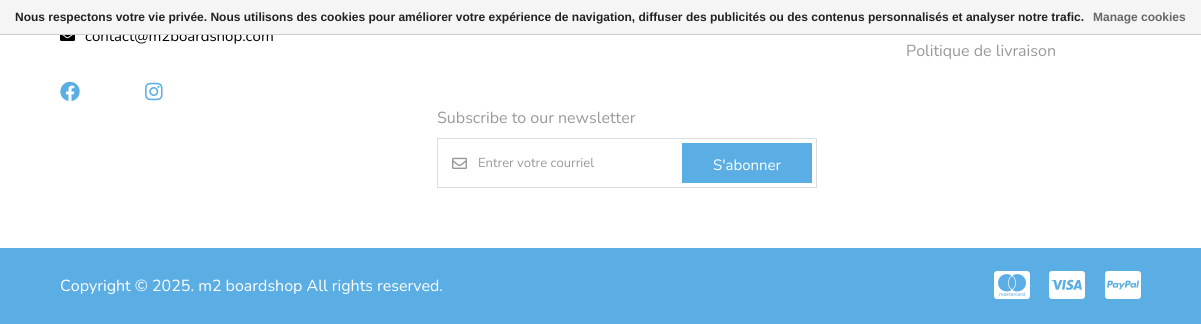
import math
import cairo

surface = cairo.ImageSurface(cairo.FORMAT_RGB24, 1201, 324)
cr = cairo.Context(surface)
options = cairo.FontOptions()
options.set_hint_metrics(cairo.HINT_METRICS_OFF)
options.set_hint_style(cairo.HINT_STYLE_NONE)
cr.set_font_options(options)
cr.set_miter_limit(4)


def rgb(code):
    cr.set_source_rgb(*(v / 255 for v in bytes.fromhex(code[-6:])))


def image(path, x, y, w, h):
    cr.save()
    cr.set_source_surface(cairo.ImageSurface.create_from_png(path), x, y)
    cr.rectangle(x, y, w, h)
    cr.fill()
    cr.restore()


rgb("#ffffff")
cr.paint()
image("img/1.png", 60, 35, 15, 6)
image("img/2.png", 60, 81, 20, 20)
image("img/3.png", 145, 82, 18, 19)
cr.rectangle(437.5, 138.5, 379, 49)
rgb("#dddddd")
cr.set_line_width(1)
cr.stroke()
image("img/4.png", 452, 157, 15, 12)
rgb("#5baee4")
cr.rectangle(682, 143, 130, 40)
cr.fill()
cr.rectangle(0, 248, 1201, 76)
cr.fill()
image("img/5.png", 994, 271, 36, 29)
image("img/6.png", 1049, 271, 36, 28)
image("img/7.png", 1105, 271, 36, 28)
cr.select_font_face("Nunito")
cr.set_font_size(15)
rgb("#000000")
cr.move_to(85, 41)
cr.show_text("contact@m2boardshop.com")
rgb("#f5f5f5")
cr.rectangle(0, 0, 1201, 34)
cr.fill()
cr.select_font_face("Liberation Sans", cairo.FONT_SLANT_NORMAL, cairo.FONT_WEIGHT_BOLD)
cr.set_font_size(12)
rgb("#666666")
cr.move_to(1093, 21)
cr.show_text("Manage cookies")
rgb("#222222")
cr.move_to(15, 21)
cr.show_text("Nous respectons votre vie privée. Nous utilisons des cookies pour améliorer votre expérience de navigation, diffuser des publicités ou des contenus personnalisés et analyser notre trafic.")
rgb("#cccccc")
cr.rectangle(0, 34, 1201, 1)
cr.fill()
cr.select_font_face("Nunito")
cr.set_font_size(16)
rgb("#999999")
cr.move_to(906, 56)
cr.show_text("Politique de livraison")
cr.move_to(437, 123)
cr.show_text("Subscribe to our newsletter")
cr.set_font_size(13)
cr.move_to(478, 167)
cr.show_text("Entrer votre courriel")
cr.set_font_size(15)
rgb("#ffffff")
cr.move_to(713, 170)
cr.show_text("S'abonner")
cr.set_font_size(16)
cr.move_to(60, 291)
cr.show_text("Copyright © 2025. m2 boardshop All rights reserved.")
surface.write_to_png("page.png")
